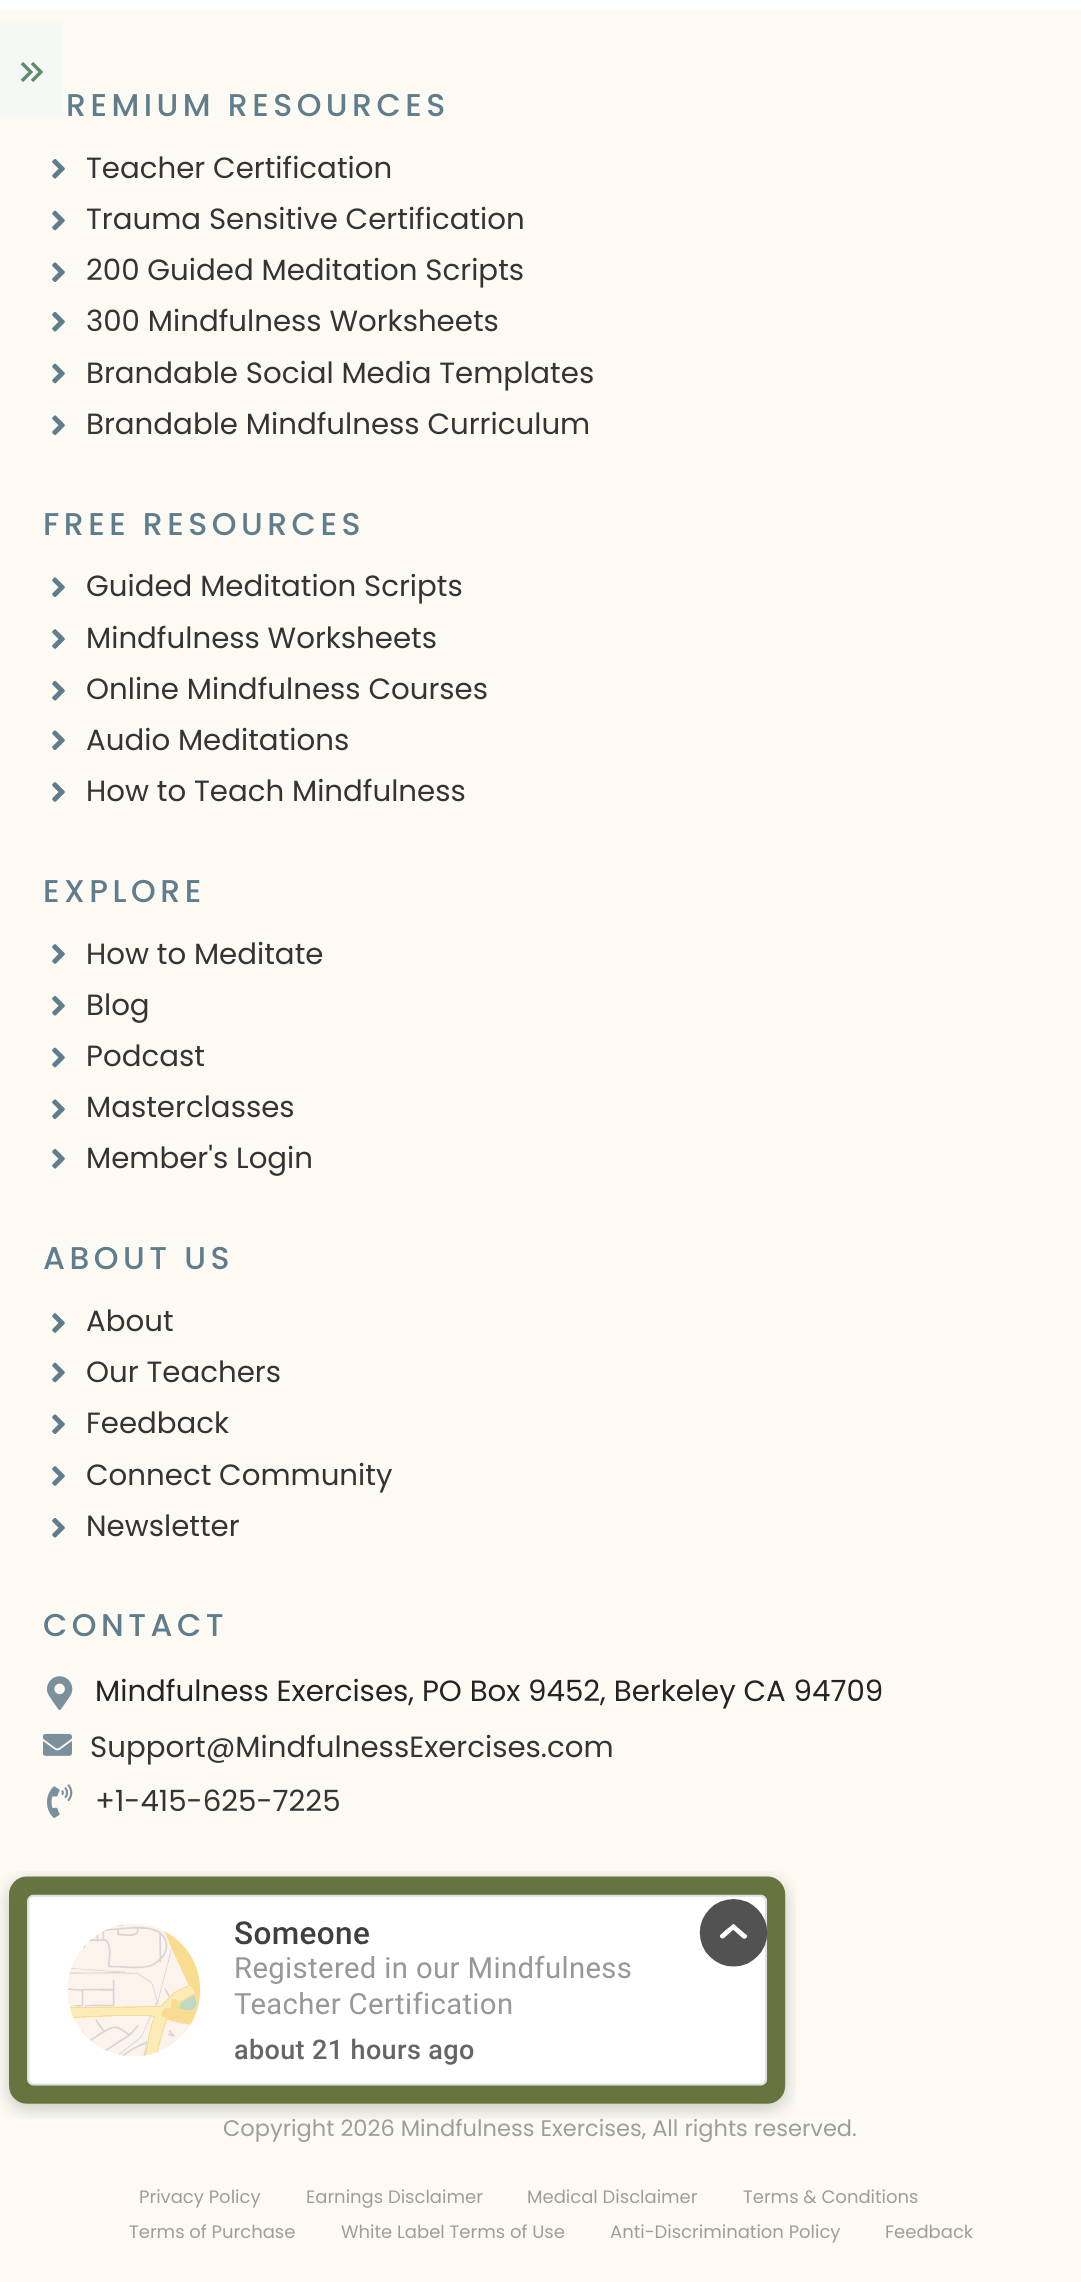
import math
import cairo

surface = cairo.ImageSurface(cairo.FORMAT_RGB24, 1081, 2282)
cr = cairo.Context(surface)
options = cairo.FontOptions()
options.set_hint_metrics(cairo.HINT_METRICS_OFF)
options.set_hint_style(cairo.HINT_STYLE_NONE)
cr.set_font_options(options)
cr.set_miter_limit(4)


def rgb(code):
    cr.set_source_rgb(*(v / 255 for v in bytes.fromhex(code[-6:])))


def tracked(x, y, s, letter, word):
    cr.move_to(x, y)
    for ch in s:
        cr.show_text(ch)
        cr.rel_move_to(letter + word * (ch == ' '), 0)


def image(path, x, y, w, h):
    cr.save()
    cr.set_source_surface(cairo.ImageSurface.create_from_png(path), x, y)
    cr.rectangle(x, y, w, h)
    cr.fill()
    cr.restore()


rgb("#ffffff")
cr.paint()
rgb("#fcfaf3")
cr.rectangle(0, 11, 1081, 2271)
cr.fill()
rgb("#f5f9f6")
cr.rectangle(0, 23, 63, 94)
cr.fill()
image("img/1.png", 20, 62, 24, 20)
image("img/2.png", 52, 159, 13, 20)
image("img/3.png", 52, 210, 13, 21)
image("img/4.png", 52, 262, 13, 20)
image("img/2.png", 52, 312, 13, 20)
image("img/3.png", 52, 363, 13, 21)
image("img/4.png", 52, 415, 13, 20)
image("img/4.png", 52, 577, 13, 20)
image("img/5.png", 52, 629, 13, 20)
image("img/2.png", 52, 681, 13, 20)
image("img/4.png", 52, 730, 13, 20)
image("img/5.png", 52, 782, 13, 20)
image("img/5.png", 52, 944, 13, 20)
image("img/2.png", 52, 996, 13, 20)
image("img/3.png", 52, 1047, 13, 21)
image("img/4.png", 52, 1099, 13, 20)
image("img/2.png", 52, 1149, 13, 20)
image("img/5.png", 52, 1313, 13, 20)
image("img/3.png", 52, 1362, 13, 21)
image("img/4.png", 52, 1414, 13, 20)
image("img/5.png", 52, 1466, 13, 20)
image("img/2.png", 52, 1518, 13, 20)
image("img/6.png", 47, 1676, 26, 34)
image("img/7.png", 43, 1733, 29, 23)
image("img/8.png", 47, 1784, 26, 34)
cr.select_font_face("Poppins Medium")
cr.set_font_size(31.5)
rgb("#5f7d8c")
tracked(66, 116, "REMIUM RESOURCES", 4.5, 0)
cr.select_font_face("Poppins")
cr.set_font_size(29.25)
rgb("#343434")
for x, y, s in [
    (86, 178, "Teacher Certification"),
    (86, 229, "Trauma Sensitive Certification"),
    (86, 280, "200 Guided Meditation Scripts"),
    (86, 331, "300 Mindfulness Worksheets"),
    (86, 383, "Brandable Social Media Templates"),
    (86, 434, "Brandable Mindfulness Curriculum"),
]:
    cr.move_to(x, y)
    cr.show_text(s)
cr.select_font_face("Poppins Medium")
cr.set_font_size(31.5)
rgb("#5f7d8c")
tracked(43, 535, "FREE RESOURCES", 4.5, 0)
cr.select_font_face("Poppins")
cr.set_font_size(29.25)
rgb("#343434")
for x, y, s in [
    (86, 596, "Guided Meditation Scripts"),
    (86, 648, "Mindfulness Worksheets"),
    (86, 699, "Online Mindfulness Courses"),
    (86, 750, "Audio Meditations"),
    (86, 801, "How to Teach Mindfulness"),
]:
    cr.move_to(x, y)
    cr.show_text(s)
cr.select_font_face("Poppins Medium")
cr.set_font_size(31.5)
rgb("#5f7d8c")
tracked(43, 902, "EXPLORE", 4.5, 0)
cr.select_font_face("Poppins")
cr.set_font_size(29.25)
rgb("#343434")
for x, y, s in [
    (86, 964, "How to Meditate"),
    (86, 1015, "Blog"),
    (86, 1066, "Podcast"),
    (86, 1117, "Masterclasses"),
    (86, 1168, "Member's Login"),
]:
    cr.move_to(x, y)
    cr.show_text(s)
cr.select_font_face("Poppins Medium")
cr.set_font_size(31.5)
rgb("#5f7d8c")
tracked(43, 1269, "ABOUT US", 4.5, 0)
cr.select_font_face("Poppins")
cr.set_font_size(29.25)
rgb("#343434")
for x, y, s in [
    (86, 1331, "About"),
    (86, 1382, "Our Teachers"),
    (86, 1433, "Feedback"),
    (86, 1485, "Connect Community"),
    (86, 1536, "Newsletter"),
]:
    cr.move_to(x, y)
    cr.show_text(s)
cr.select_font_face("Poppins Medium")
cr.set_font_size(31.5)
rgb("#5f7d8c")
tracked(43, 1636, "CONTACT", 4.5, 0)
cr.select_font_face("Poppins")
cr.set_font_size(29.25)
rgb("#242424")
cr.move_to(95, 1701)
cr.show_text("Mindfulness Exercises, PO Box 9452, Berkeley CA 94709")
rgb("#343434")
cr.move_to(90, 1757)
cr.show_text("Support@MindfulnessExercises.com")
cr.move_to(95, 1811)
cr.show_text("+1-415-625-7225")
cr.set_font_size(22.5)
rgb("#9f9d98")
cr.move_to(223, 2136)
cr.show_text("Copyright 2026 Mindfulness Exercises, All rights reserved.")
cr.set_font_size(18)
for x, y, s in [
    (139, 2203, "Privacy Policy"),
    (306, 2203, "Earnings Disclaimer"),
    (527, 2203, "Medical Disclaimer"),
    (743, 2203, "Terms & Conditions"),
    (129, 2238, "Terms of Purchase"),
    (341, 2238, "White Label Terms of Use"),
    (610, 2238, "Anti-Discrimination Policy"),
    (885, 2238, "Feedback"),
]:
    cr.move_to(x, y)
    cr.show_text(s)
image("img/9.png", 0, 1871, 796, 248)
surface.write_to_png("page.png")
